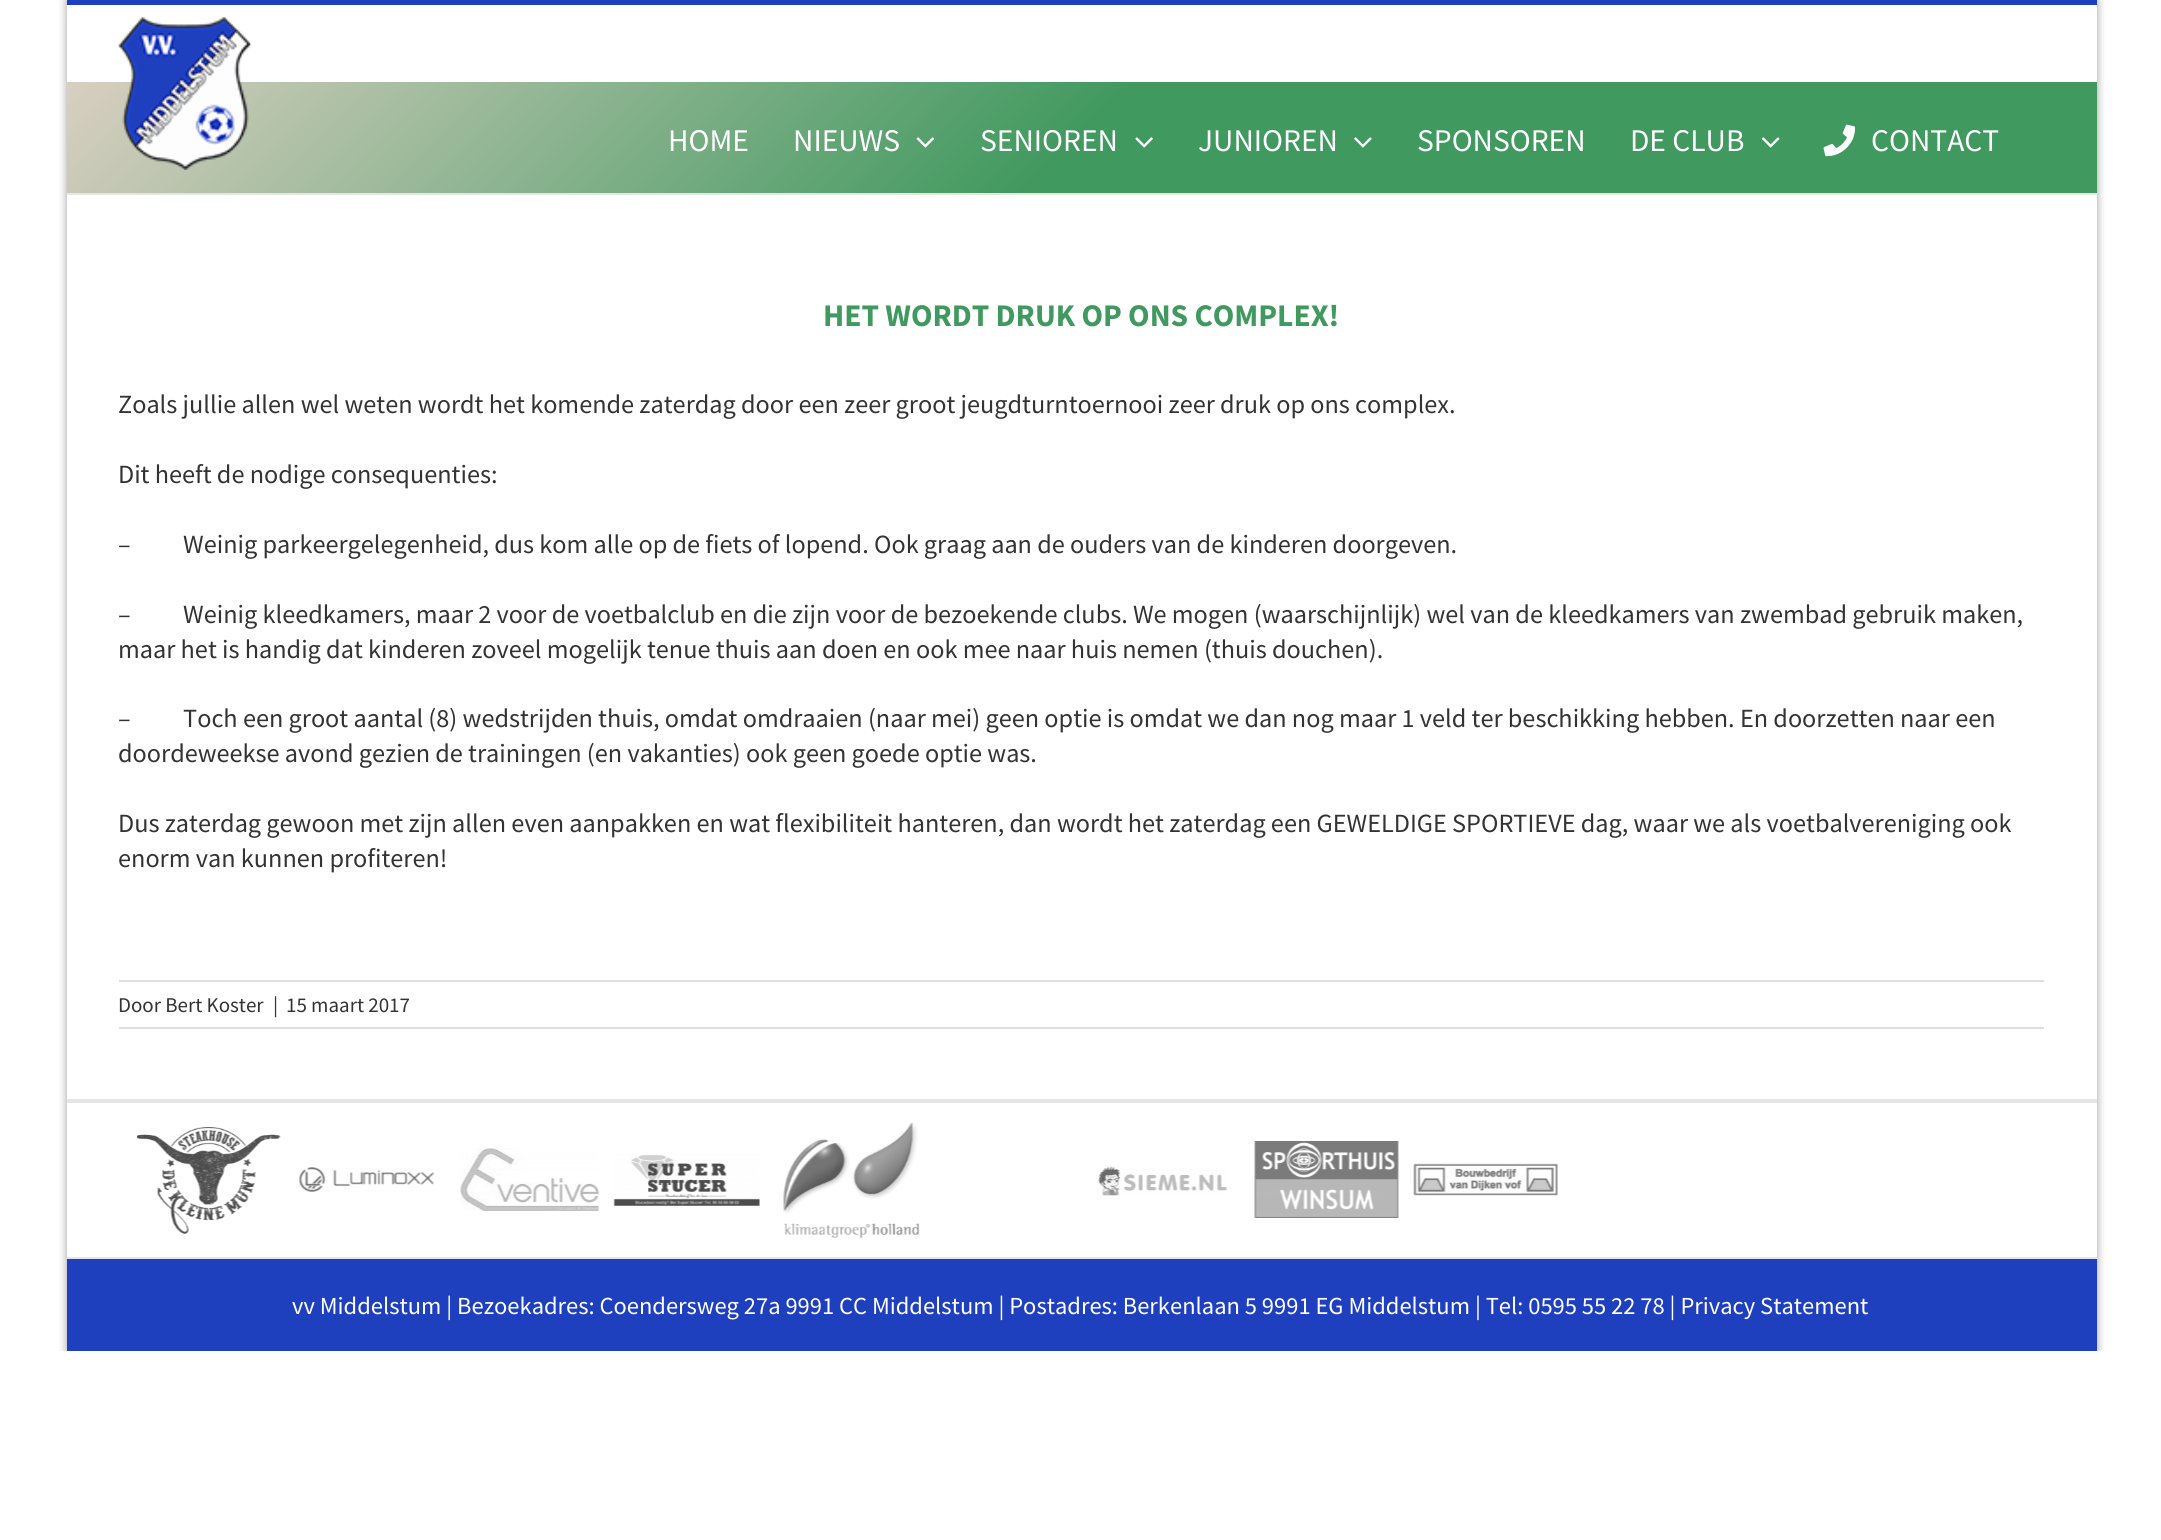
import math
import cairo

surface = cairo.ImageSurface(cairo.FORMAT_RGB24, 2161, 1540)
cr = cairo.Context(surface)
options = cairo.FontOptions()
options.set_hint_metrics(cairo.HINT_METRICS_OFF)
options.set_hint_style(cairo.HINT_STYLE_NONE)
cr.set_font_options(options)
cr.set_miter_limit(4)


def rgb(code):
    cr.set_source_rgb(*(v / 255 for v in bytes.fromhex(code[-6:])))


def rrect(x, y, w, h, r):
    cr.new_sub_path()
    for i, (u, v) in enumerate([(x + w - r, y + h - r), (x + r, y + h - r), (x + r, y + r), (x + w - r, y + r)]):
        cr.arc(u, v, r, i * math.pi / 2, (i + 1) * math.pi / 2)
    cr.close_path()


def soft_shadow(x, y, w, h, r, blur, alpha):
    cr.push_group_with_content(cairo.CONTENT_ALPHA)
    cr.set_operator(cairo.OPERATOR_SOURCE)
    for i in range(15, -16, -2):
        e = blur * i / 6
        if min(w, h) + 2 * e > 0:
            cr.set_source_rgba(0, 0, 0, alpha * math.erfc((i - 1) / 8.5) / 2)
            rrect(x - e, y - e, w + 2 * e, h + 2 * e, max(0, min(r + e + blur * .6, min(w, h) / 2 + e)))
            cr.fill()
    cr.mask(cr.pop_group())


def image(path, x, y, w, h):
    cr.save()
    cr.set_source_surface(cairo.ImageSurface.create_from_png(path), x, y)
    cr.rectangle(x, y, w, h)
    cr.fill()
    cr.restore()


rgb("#ffffff")
cr.paint()
cr.save()
cr.rectangle(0, 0, 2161, 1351)
cr.clip()
rgb("#000000")
soft_shadow(67, 0, 2030, 1351, 0, 4.5, 0.4)
cr.restore()
rgb("#ffffff")
cr.rectangle(67, 5, 2030, 1252)
cr.fill()
rgb("#1f40be")
cr.rectangle(67, 0, 2030, 5)
cr.fill()
gradient = cairo.LinearGradient(546, -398, 1617, 672)
gradient.add_color_stop_rgba(0, 0.851, 0.812, 0.757, 1)
gradient.add_color_stop_rgba(0.5, 0.251, 0.6, 0.373, 1)
gradient.add_color_stop_rgba(1, 0.251, 0.6, 0.373, 1)
cr.set_source(gradient)
cr.rectangle(67, 82, 2030, 111)
cr.fill()
rgb("#e5e5e5")
cr.rectangle(67, 193, 2030, 2)
cr.fill()
image("img/1.png", 118, 17, 133, 153)
image("img/2.png", 916, 137, 19, 11)
image("img/3.png", 1135, 137, 18, 11)
image("img/4.png", 1354, 137, 18, 11)
image("img/5.png", 1761, 137, 19, 11)
image("img/6.png", 1823, 124, 33, 33)
for x, y, w, h, color in [
    (119, 980, 1925, 2, "#e0dede"),
    (119, 1027, 1925, 2, "#e0dede"),
    (67, 1099, 2030, 4, "#e5e5e5"),
]:
    rgb(color)
    cr.rectangle(x, y, w, h)
    cr.fill()
image("img/7.png", 137, 1127, 144, 107)
image("img/8.png", 299, 1167, 135, 25)
image("img/9.png", 460, 1148, 139, 63)
image("img/10.png", 613, 1154, 147, 52)
image("img/11.png", 783, 1122, 137, 117)
image("img/12.png", 1098, 1166, 130, 30)
image("img/13.png", 1254, 1141, 145, 77)
image("img/14.png", 1413, 1163, 145, 33)
rgb("#1f40be")
cr.rectangle(67, 1259, 2030, 92)
cr.fill()
rgb("#e5e5e5")
cr.rectangle(67, 1257, 2030, 2)
cr.fill()
cr.select_font_face("Source Sans Pro")
cr.set_font_size(31.5)
rgb("#ffffff")
for x, y, s in [
    (668, 151, "HOME"),
    (793, 151, "NIEUWS"),
    (980, 151, "SENIOREN"),
    (1198, 151, "JUNIOREN"),
    (1417, 151, "SPONSOREN"),
    (1630, 151, "DE CLUB"),
    (1871, 151, "CONTACT"),
]:
    cr.move_to(x, y)
    cr.show_text(s)
cr.select_font_face("Source Sans Pro", cairo.FONT_SLANT_NORMAL, cairo.FONT_WEIGHT_BOLD)
rgb("#40995f")
cr.move_to(823, 326)
cr.show_text("HET WORDT DRUK OP ONS COMPLEX!")
cr.select_font_face("Source Sans Pro")
cr.set_font_size(26.25)
rgb("#333333")
for x, y, s in [
    (118, 413, "Zoals jullie allen wel weten wordt het komende zaterdag door een zeer groot jeugdturntoernooi zeer druk op ons complex."),
    (118, 483, "Dit heeft de nodige consequenties:"),
    (118, 553, "–          Weinig parkeergelegenheid, dus kom alle op de fiets of lopend. Ook graag aan de ouders van de kinderen doorgeven."),
    (118, 623, "–          Weinig kleedkamers, maar 2 voor de voetbalclub en die zijn voor de bezoekende clubs. We mogen (waarschijnlijk) wel van de kleedkamers van zwembad gebruik maken,"),
    (118, 658, "maar het is handig dat kinderen zoveel mogelijk tenue thuis aan doen en ook mee naar huis nemen (thuis douchen)."),
    (118, 727, "–          Toch een groot aantal (8) wedstrijden thuis, omdat omdraaien (naar mei) geen optie is omdat we dan nog maar 1 veld ter beschikking hebben. En doorzetten naar een"),
    (118, 762, "doordeweekse avond gezien de trainingen (en vakanties) ook geen goede optie was."),
    (118, 832, "Dus zaterdag gewoon met zijn allen even aanpakken en wat flexibiliteit hanteren, dan wordt het zaterdag een GEWELDIGE SPORTIEVE dag, waar we als voetbalvereniging ook"),
    (118, 867, "enorm van kunnen profiteren!"),
]:
    cr.move_to(x, y)
    cr.show_text(s)
cr.set_font_size(21)
for x, y, s in [
    (118, 1012, "Door Bert Koster"),
    (273, 1012, "|"),
    (286, 1012, "15 maart 2017"),
]:
    cr.move_to(x, y)
    cr.show_text(s)
cr.set_font_size(24.5)
rgb("#ffffff")
cr.move_to(292, 1314)
cr.show_text("vv Middelstum | Bezoekadres: Coendersweg 27a 9991 CC Middelstum | Postadres: Berkenlaan 5 9991 EG Middelstum | Tel: 0595 55 22 78 | Privacy Statement")
surface.write_to_png("page.png")
